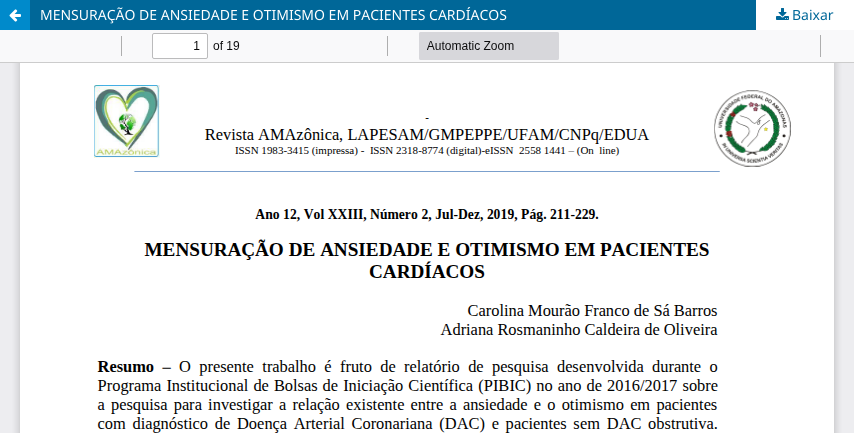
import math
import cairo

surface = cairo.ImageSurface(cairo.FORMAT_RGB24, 854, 433)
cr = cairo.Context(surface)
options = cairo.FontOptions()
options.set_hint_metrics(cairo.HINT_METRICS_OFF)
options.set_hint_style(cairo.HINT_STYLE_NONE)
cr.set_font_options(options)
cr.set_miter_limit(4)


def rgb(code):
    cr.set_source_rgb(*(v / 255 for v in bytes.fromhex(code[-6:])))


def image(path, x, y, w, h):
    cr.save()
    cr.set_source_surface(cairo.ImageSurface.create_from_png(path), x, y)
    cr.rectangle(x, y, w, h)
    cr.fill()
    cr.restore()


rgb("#ffffff")
cr.paint()
rgb("#006798")
cr.rectangle(30, 0, 726, 30)
cr.fill()
rgb("#008acb")
cr.rectangle(0, 0, 30, 30)
cr.fill()
image("img/1.png", 9, 9, 12, 13)
image("img/2.png", 776, 8, 13, 12)
image("img/3.png", 0, 30, 854, 403)
cr.select_font_face("Noto Sans")
cr.set_font_size(14)
rgb("#ffffff")
cr.move_to(40, 20)
cr.show_text("MENSURAÇÃO DE ANSIEDADE E OTIMISMO EM PACIENTES CARDÍACOS")
rgb("#006798")
cr.move_to(792, 20)
cr.show_text("Baixar")
surface.write_to_png("page.png")
